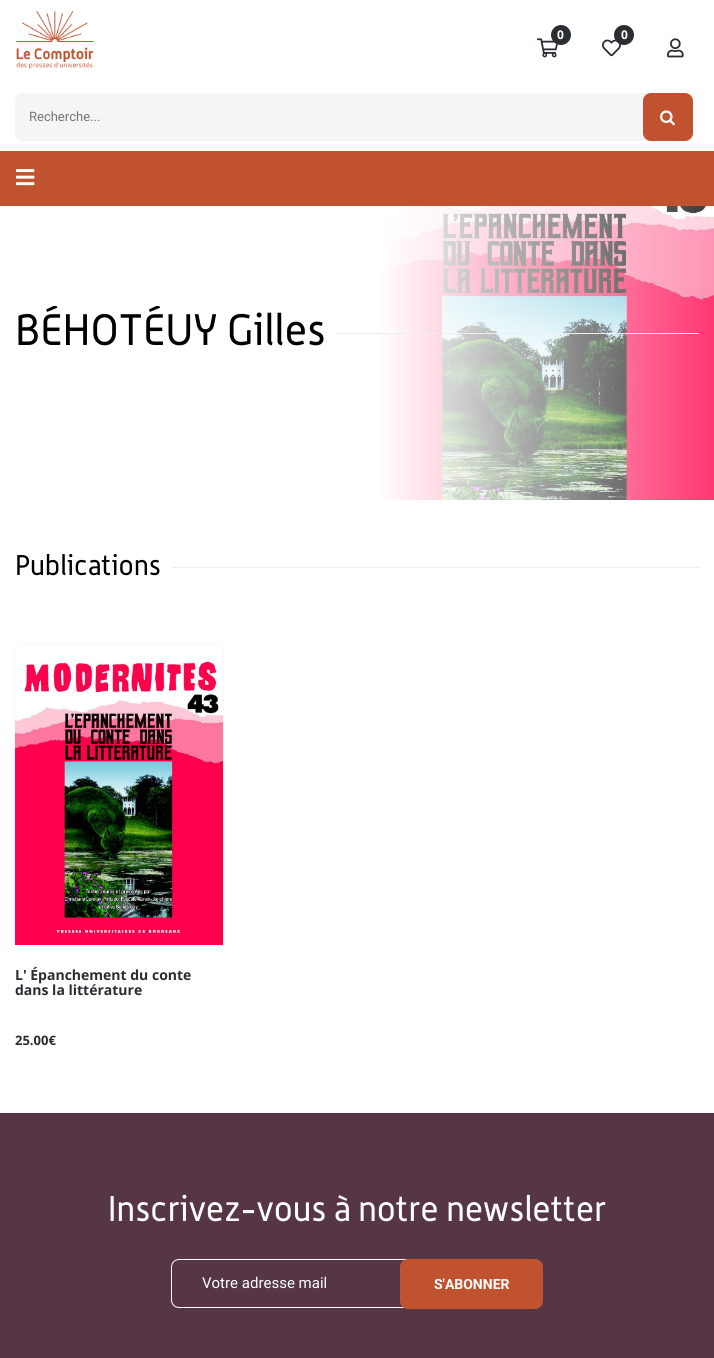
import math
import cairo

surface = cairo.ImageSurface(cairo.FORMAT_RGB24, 714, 1358)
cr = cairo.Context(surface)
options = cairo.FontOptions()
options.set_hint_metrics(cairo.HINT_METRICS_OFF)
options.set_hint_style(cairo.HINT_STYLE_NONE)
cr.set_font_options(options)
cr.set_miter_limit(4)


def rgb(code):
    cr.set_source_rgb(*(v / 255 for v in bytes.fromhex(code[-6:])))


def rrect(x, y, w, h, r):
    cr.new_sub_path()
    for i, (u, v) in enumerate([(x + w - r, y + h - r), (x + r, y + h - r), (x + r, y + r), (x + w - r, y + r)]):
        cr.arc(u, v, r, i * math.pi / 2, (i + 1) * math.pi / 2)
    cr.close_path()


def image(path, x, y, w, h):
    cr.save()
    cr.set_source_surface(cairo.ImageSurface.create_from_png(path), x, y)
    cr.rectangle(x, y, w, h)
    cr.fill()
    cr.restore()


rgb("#ffffff")
cr.paint()
image("img/1.png", 15, 11, 79, 59)
image("img/2.png", 537, 38, 21, 20)
rgb("#2a2e33")
cr.arc(561, 35, 10, 0, 2 * math.pi)
cr.fill()
image("img/3.png", 602, 39, 19, 18)
cr.arc(624, 35, 10, 0, 2 * math.pi)
cr.fill()
image("img/4.png", 667, 38, 17, 20)
rgb("#f5f5f5")
cr.new_path()
cr.move_to(23, 93)
cr.line_to(649, 93)
cr.line_to(649, 141)
cr.line_to(23, 141)
cr.curve_to(18.5, 141, 15, 137.5, 15, 133)
cr.line_to(15, 101)
cr.curve_to(15, 96.5, 18.5, 93, 23, 93)
cr.close_path()
cr.fill()
rgb("#c0522f")
rrect(643.5, 93.5, 49, 47, 7.5)
cr.fill_preserve()
cr.set_line_width(1)
cr.stroke()
image("img/5.png", 660, 110, 15, 16)
cr.rectangle(0, 151, 714, 55)
cr.fill()
image("img/6.png", 16, 169, 19, 17)
image("img/7.png", 381, 206, 333, 294)
gradient = cairo.LinearGradient(321, 353, 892, 353)
gradient.add_color_stop_rgba(0.1, 1, 1, 1, 1)
gradient.add_color_stop_rgba(0.85, 1, 1, 1, 0)
cr.set_source(gradient)
cr.rectangle(381, 206, 333, 294)
cr.fill()
rgb("#ebeef3")
cr.rectangle(335, 333, 364, 1)
cr.fill()
cr.rectangle(172, 567, 527, 1)
cr.fill()
image("img/8.png", 14, 643, 210, 303)
rgb("#563645")
cr.rectangle(0, 1113, 714, 245)
cr.fill()
rrect(171.5, 1259.5, 249, 48, 7.5)
rgb("#ffffff")
cr.stroke()
rgb("#c0522f")
rrect(400, 1259, 143, 50, 8)
cr.fill()
cr.select_font_face("Open Sans", cairo.FONT_SLANT_NORMAL, cairo.FONT_WEIGHT_BOLD)
cr.set_font_size(12)
rgb("#ffffff")
cr.move_to(557, 39)
cr.show_text("0")
cr.move_to(621, 39)
cr.show_text("0")
cr.select_font_face("Roboto")
cr.set_font_size(13)
rgb("#757575")
cr.move_to(29, 121)
cr.show_text("Recherche...")
cr.save()
cr.rectangle(15, 306, 684, 48)
cr.clip()
cr.select_font_face("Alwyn")
cr.set_font_size(43.25)
rgb("#000000")
cr.move_to(15, 345)
cr.show_text("BÉHOTÉUY Gilles")
cr.restore()
cr.select_font_face("Alwyn")
cr.set_font_size(28)
rgb("#000000")
cr.move_to(15, 575)
cr.show_text("Publications")
cr.select_font_face("Open Sans", cairo.FONT_SLANT_NORMAL, cairo.FONT_WEIGHT_BOLD)
cr.set_font_size(14)
rgb("#2a2e33")
cr.move_to(15, 980)
cr.show_text("L' Épanchement du conte")
cr.move_to(15, 995)
cr.show_text("dans la littérature")
cr.set_font_size(13)
cr.move_to(15, 1045)
cr.show_text("25.00€")
cr.select_font_face("Alwyn")
cr.set_font_size(35)
rgb("#ffffff")
cr.move_to(108, 1221)
cr.show_text("Inscrivez-vous à notre newsletter")
cr.select_font_face("Roboto")
cr.set_font_size(15)
cr.move_to(202, 1288)
cr.show_text("Votre adresse mail")
cr.select_font_face("Roboto", cairo.FONT_SLANT_NORMAL, cairo.FONT_WEIGHT_BOLD)
cr.set_font_size(14)
cr.move_to(434, 1289)
cr.show_text("S'ABONNER")
surface.write_to_png("page.png")
